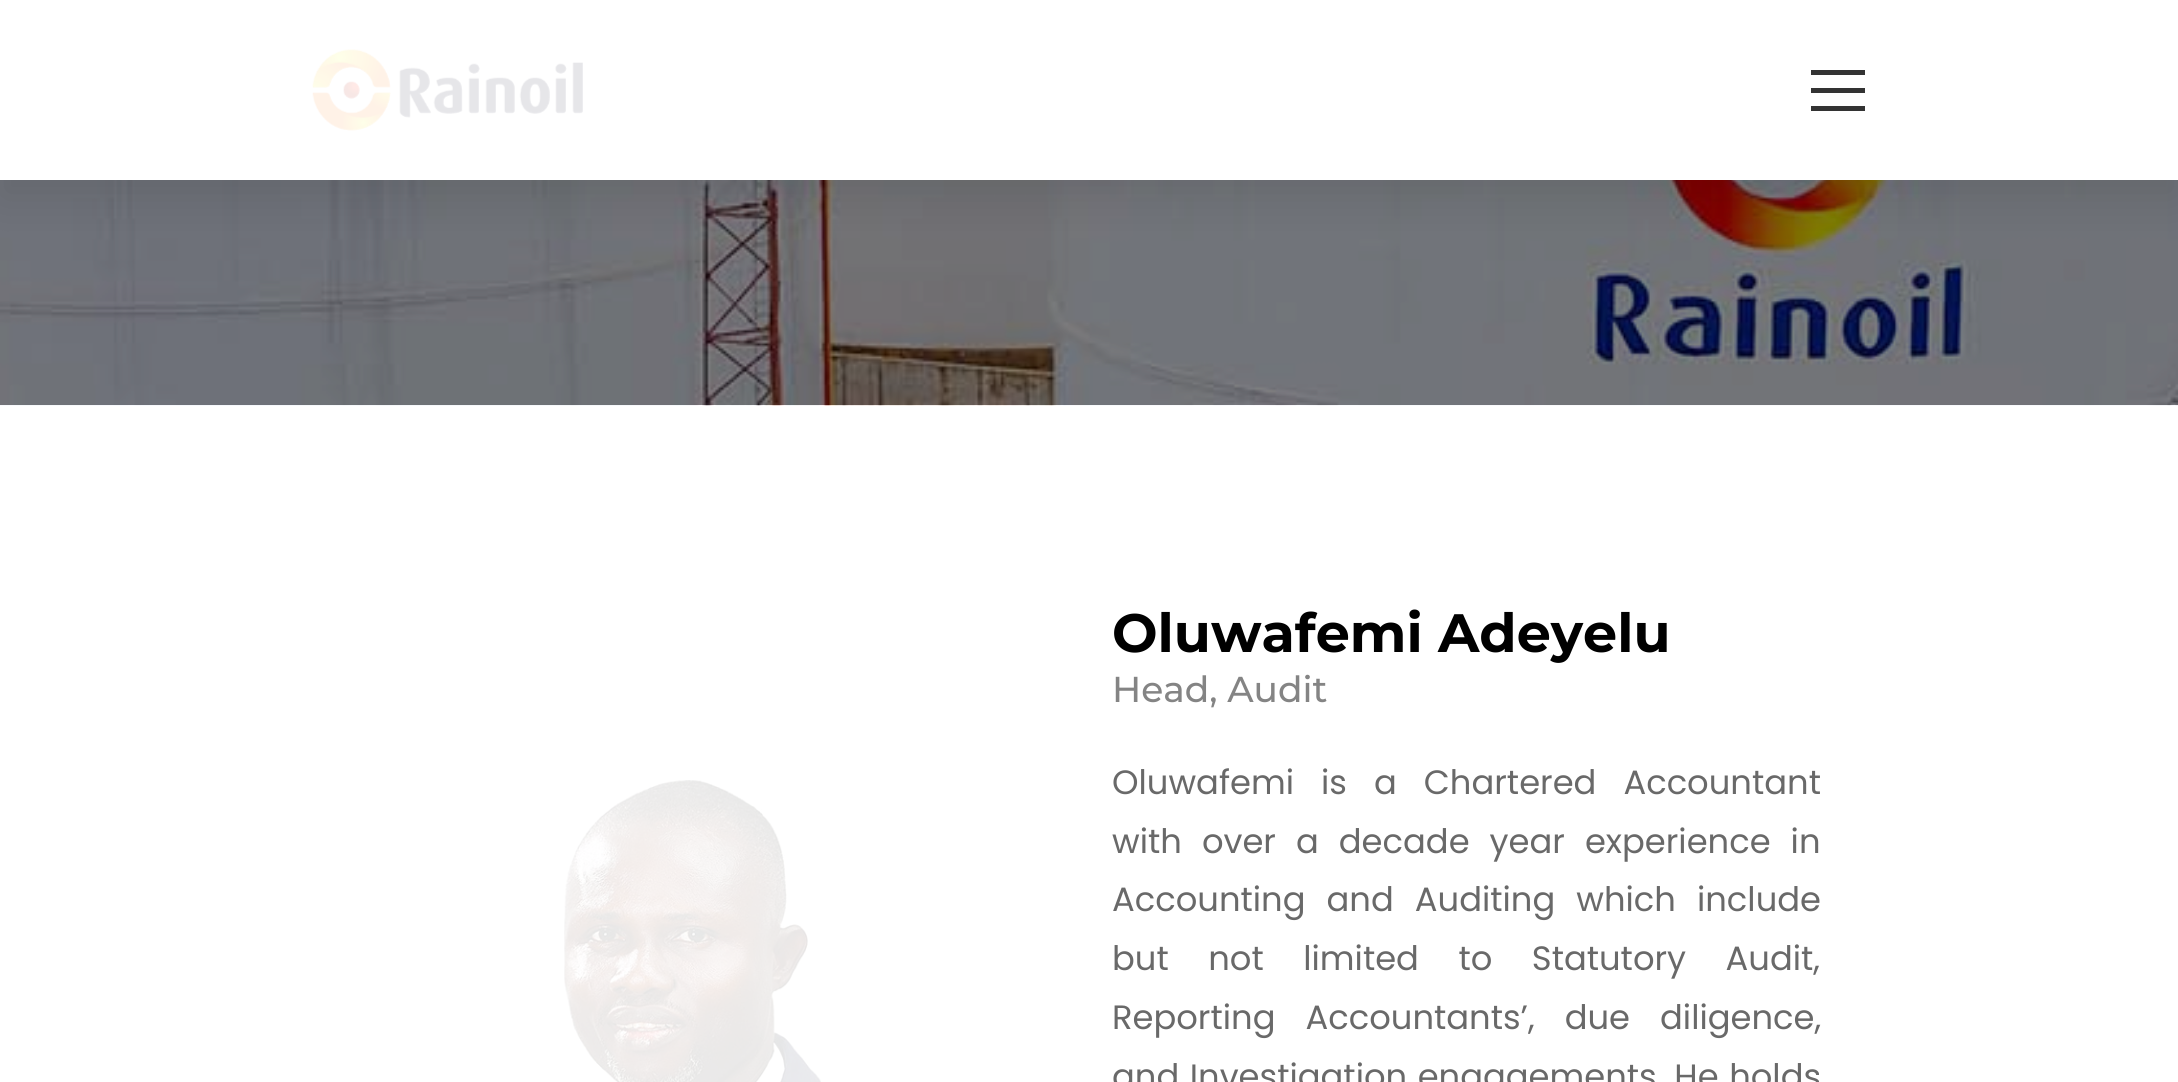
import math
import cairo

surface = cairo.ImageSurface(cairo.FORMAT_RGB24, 2178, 1082)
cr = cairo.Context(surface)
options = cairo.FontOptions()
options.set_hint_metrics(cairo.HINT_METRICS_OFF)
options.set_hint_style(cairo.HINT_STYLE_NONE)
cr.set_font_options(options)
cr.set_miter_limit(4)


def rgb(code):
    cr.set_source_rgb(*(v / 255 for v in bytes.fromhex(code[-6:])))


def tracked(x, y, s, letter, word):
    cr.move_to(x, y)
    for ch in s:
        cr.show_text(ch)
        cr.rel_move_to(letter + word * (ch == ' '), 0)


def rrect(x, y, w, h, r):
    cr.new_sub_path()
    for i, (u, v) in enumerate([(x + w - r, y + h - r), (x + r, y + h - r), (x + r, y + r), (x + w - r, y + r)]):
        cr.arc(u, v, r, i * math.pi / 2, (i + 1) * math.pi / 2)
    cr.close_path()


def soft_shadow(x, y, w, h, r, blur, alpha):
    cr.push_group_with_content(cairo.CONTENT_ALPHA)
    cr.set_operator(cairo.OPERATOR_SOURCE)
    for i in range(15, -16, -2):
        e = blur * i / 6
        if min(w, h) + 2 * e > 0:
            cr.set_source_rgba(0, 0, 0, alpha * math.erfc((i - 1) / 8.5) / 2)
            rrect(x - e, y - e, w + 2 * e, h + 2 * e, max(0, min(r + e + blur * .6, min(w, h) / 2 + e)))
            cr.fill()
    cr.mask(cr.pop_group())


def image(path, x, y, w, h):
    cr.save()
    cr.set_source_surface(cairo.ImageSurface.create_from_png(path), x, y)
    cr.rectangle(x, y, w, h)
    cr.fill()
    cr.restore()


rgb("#ffffff")
cr.paint()
image("img/2.png", 0, 180, 2178, 226)
rgb("#000000")
soft_shadow(0, 18, 2178, 180, 0, 22.5, 0.1)
rgb("#ffffff")
cr.rectangle(0, 0, 2178, 180)
cr.fill()
image("img/1.png", 312, 49, 271, 82)
for x, y, w, h, color in [
    (1811, 88, 54, 5, "#333333"),
    (1811, 70, 54, 5, "#333333"),
    (1811, 106, 54, 5, "#333333"),
]:
    rgb(color)
    cr.rectangle(x, y, w, h)
    cr.fill()
image("img/3.png", 564, 780, 257, 302)
cr.select_font_face("Montserrat", cairo.FONT_SLANT_NORMAL, cairo.FONT_WEIGHT_BOLD)
cr.set_font_size(54)
rgb("#000000")
cr.move_to(1112, 652)
cr.show_text("Oluwafemi Adeyelu")
cr.select_font_face("Montserrat Medium")
cr.set_font_size(36)
rgb("#848484")
cr.move_to(1112, 702)
cr.show_text("Head, Audit")
cr.select_font_face("Poppins")
cr.set_font_size(33.75)
rgb("#696969")
tracked(1112, 794, "Oluwafemi is a Chartered Accountant", 0, 18)
tracked(1112, 853, "with over a decade year experience in", 0, 11)
tracked(1112, 911, "Accounting and Auditing which include", 0, 12)
tracked(1112, 970, "but not limited to Statutory Audit,", 0, 30.5)
tracked(1112, 1029, "Reporting Accountants’, due diligence,", 0, 21)
tracked(1112, 1088, "and Investigation engagements. He holds", 0, 1.5)
surface.write_to_png("page.png")
